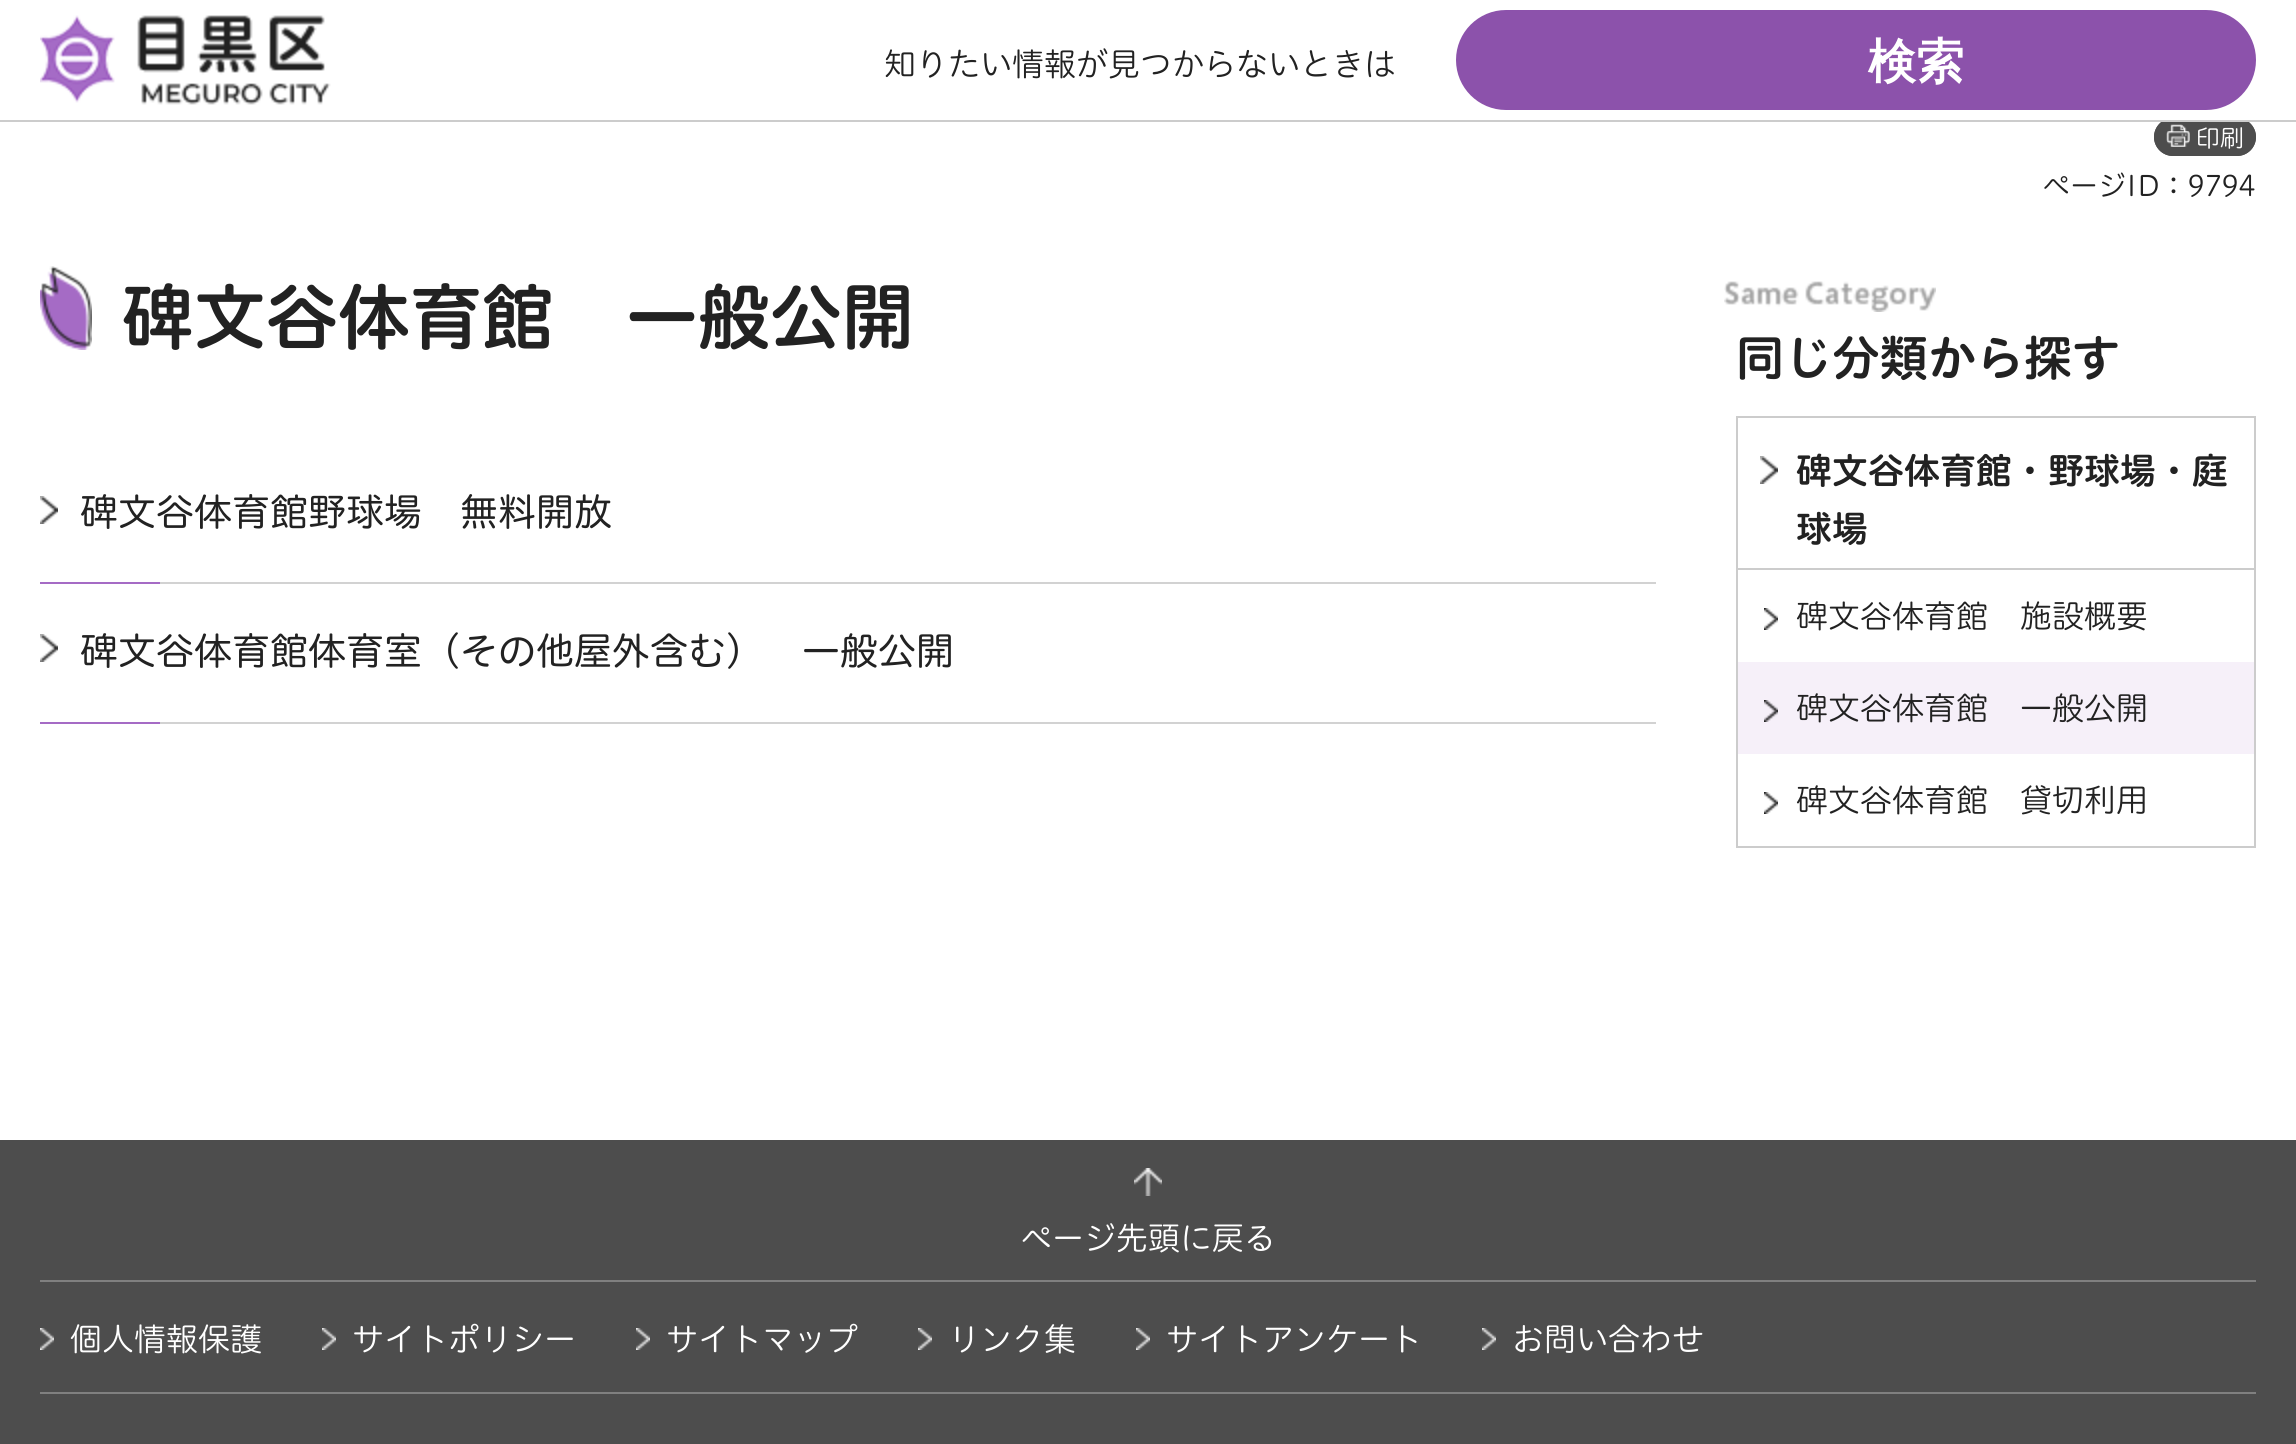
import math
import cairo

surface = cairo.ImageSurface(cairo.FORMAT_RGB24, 2296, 1444)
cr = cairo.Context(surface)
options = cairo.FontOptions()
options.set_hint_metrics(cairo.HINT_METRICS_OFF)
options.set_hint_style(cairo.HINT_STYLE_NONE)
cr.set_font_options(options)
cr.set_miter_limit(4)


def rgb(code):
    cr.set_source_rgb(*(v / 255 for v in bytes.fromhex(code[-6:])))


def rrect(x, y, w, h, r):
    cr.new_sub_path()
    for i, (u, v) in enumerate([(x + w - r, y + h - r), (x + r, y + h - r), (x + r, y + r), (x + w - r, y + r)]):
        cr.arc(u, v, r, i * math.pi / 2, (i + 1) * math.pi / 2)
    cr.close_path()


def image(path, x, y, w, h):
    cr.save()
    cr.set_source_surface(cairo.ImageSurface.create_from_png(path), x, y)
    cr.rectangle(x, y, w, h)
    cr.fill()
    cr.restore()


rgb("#ffffff")
cr.paint()
rgb("#4d4d4d")
rrect(2154, 118, 102, 38, 19)
cr.fill()
image("img/2.png", 2166, 124, 24, 23)
rrect(2155, 119, 100, 36, 18)
cr.stroke()
rgb("#ffffff")
cr.rectangle(2164, 118, 82, 2)
cr.fill()
rgb("#cccccc")
cr.rectangle(0, 120, 2296, 2)
cr.fill()
image("img/1.png", 40, 15, 291, 90)
rgb("#8c52ab")
rrect(1458, 12, 796, 96, 48)
cr.fill_preserve()
cr.set_line_width(4)
cr.stroke()
image("img/3.png", 40, 266, 52, 84)
rgb("#d2d2d2")
cr.rectangle(160, 582, 1496, 2)
cr.fill()
image("img/4.png", 40, 496, 18, 28)
rgb("#a56bc5")
cr.rectangle(40, 582, 120, 2)
cr.fill()
rgb("#d2d2d2")
cr.rectangle(160, 722, 1496, 2)
cr.fill()
image("img/4.png", 40, 634, 18, 28)
rgb("#a56bc5")
cr.rectangle(40, 722, 120, 2)
cr.fill()
image("img/5.png", 1724, 281, 212, 31)
cr.rectangle(1737, 417, 518, 430)
rgb("#cccccc")
cr.set_line_width(2)
cr.stroke()
cr.rectangle(1738, 568, 516, 2)
cr.fill()
image("img/4.png", 1760, 456, 18, 28)
image("img/6.png", 1764, 608, 14, 22)
rgb("#f6f0f9")
cr.rectangle(1738, 662, 516, 92)
cr.fill()
image("img/7.png", 1764, 700, 14, 22)
image("img/6.png", 1764, 792, 14, 22)
rgb("#4d4d4d")
cr.rectangle(0, 1140, 2296, 304)
cr.fill()
image("img/8.png", 1134, 1168, 28, 28)
rgb("#808080")
cr.rectangle(40, 1280, 2216, 2)
cr.fill()
cr.rectangle(40, 1392, 2216, 2)
cr.fill()
image("img/9.png", 40, 1328, 14, 22)
image("img/9.png", 322, 1328, 14, 22)
image("img/9.png", 636, 1328, 14, 22)
image("img/9.png", 918, 1328, 14, 22)
image("img/9.png", 1136, 1328, 14, 22)
image("img/9.png", 1482, 1328, 14, 22)
cr.select_font_face("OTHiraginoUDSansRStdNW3 Light")
cr.set_font_size(32)
rgb("#222222")
cr.move_to(884, 76)
cr.show_text("知りたい情報が見つからないときは")
cr.select_font_face("WenQuanYi Zen Hei", cairo.FONT_SLANT_NORMAL, cairo.FONT_WEIGHT_BOLD)
cr.set_font_size(48)
rgb("#ffffff")
cr.move_to(1868, 78)
cr.show_text("検索")
cr.select_font_face("OTHiraginoUDSansRStdNW3 Light")
cr.set_font_size(24)
cr.move_to(2196, 147)
cr.show_text("印刷")
cr.set_font_size(28)
rgb("#222222")
cr.move_to(2042, 196)
cr.show_text("ページID：9794")
cr.select_font_face("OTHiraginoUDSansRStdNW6 SemiBold")
cr.set_font_size(72)
cr.move_to(122, 344)
cr.show_text("碑文谷体育館　一般公開")
cr.select_font_face("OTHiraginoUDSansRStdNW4")
cr.set_font_size(38)
cr.move_to(80, 526)
cr.show_text("碑文谷体育館野球場　無料開放")
cr.move_to(80, 665)
cr.show_text("碑文谷体育館体育室（その他屋外含む）　一般公開")
cr.select_font_face("OTHiraginoUDSansRStdNW6 SemiBold")
cr.set_font_size(48)
cr.move_to(1736, 376)
cr.show_text("同じ分類から探す")
cr.set_font_size(36)
cr.move_to(1796, 484)
cr.show_text("碑文谷体育館・野球場・庭")
cr.move_to(1796, 542)
cr.show_text("球場")
cr.select_font_face("OTHiraginoUDSansRStdNW3 Light")
cr.set_font_size(32)
for x, y, s in [
    (1796, 628, "碑文谷体育館　施設概要"),
    (1796, 720, "碑文谷体育館　一般公開"),
    (1796, 812, "碑文谷体育館　貸切利用"),
]:
    cr.move_to(x, y)
    cr.show_text(s)
rgb("#ffffff")
for x, y, s in [
    (1020, 1250, "ページ先頭に戻る"),
    (70, 1351, "個人情報保護"),
    (352, 1351, "サイトポリシー"),
    (666, 1351, "サイトマップ"),
    (948, 1351, "リンク集"),
    (1166, 1351, "サイトアンケート"),
    (1512, 1351, "お問い合わせ"),
]:
    cr.move_to(x, y)
    cr.show_text(s)
surface.write_to_png("page.png")
